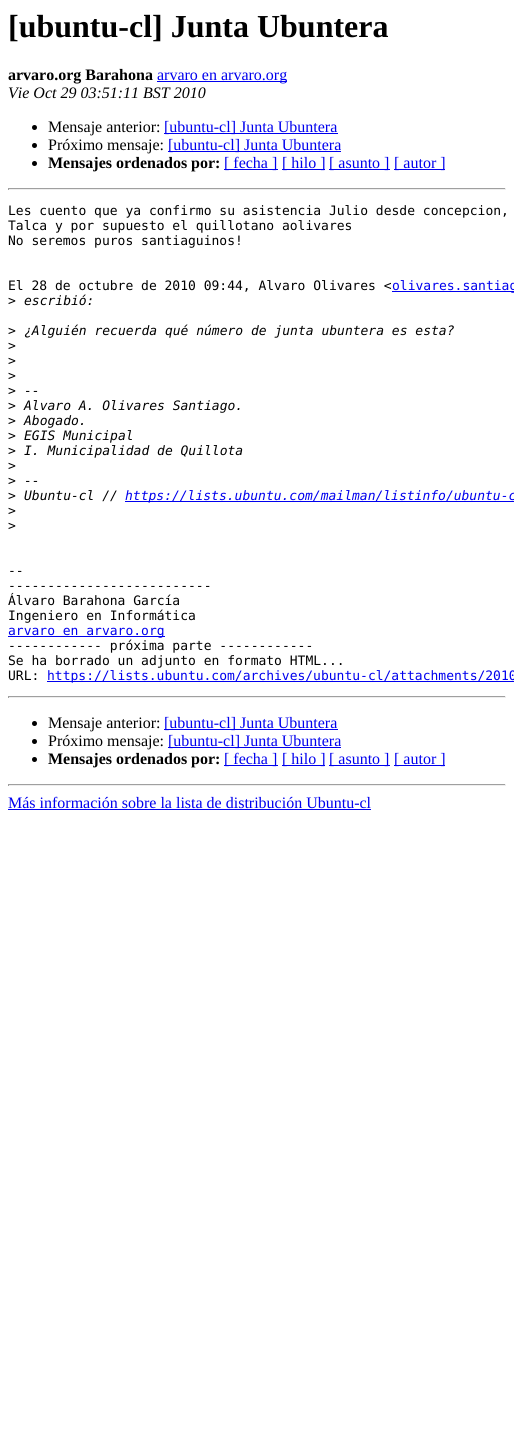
import math
import cairo

surface = cairo.ImageSurface(cairo.FORMAT_RGB24, 514, 1437)
cr = cairo.Context(surface)
options = cairo.FontOptions()
options.set_hint_metrics(cairo.HINT_METRICS_OFF)
options.set_hint_style(cairo.HINT_STYLE_NONE)
cr.set_font_options(options)
cr.set_miter_limit(4)


def rgb(code):
    cr.set_source_rgb(*(v / 255 for v in bytes.fromhex(code[-6:])))


rgb("#ffffff")
cr.paint()
rgb("#0000ee")
cr.rectangle(157, 81, 130, 1)
cr.fill()
rgb("#000000")
cr.arc(34.5, 127.5, 2.5, 0, 2 * math.pi)
cr.fill()
rgb("#0000ee")
cr.rectangle(164, 133, 174, 1)
cr.fill()
rgb("#000000")
cr.arc(34.5, 145.5, 2.5, 0, 2 * math.pi)
cr.fill()
rgb("#0000ee")
cr.rectangle(168, 151, 173, 1)
cr.fill()
rgb("#000000")
cr.arc(34.5, 163.5, 2.5, 0, 2 * math.pi)
cr.fill()
for x, y, w, h, color in [
    (224, 169, 54, 1, "#0000ee"),
    (282, 169, 43, 1, "#0000ee"),
    (329, 169, 61, 1, "#0000ee"),
    (394, 169, 51, 1, "#0000ee"),
    (8, 188, 498, 1, "#9f9f9f"),
    (505, 188, 1, 2, "#eeeeee"),
    (8, 189, 498, 1, "#eeeeee"),
    (8, 188, 1, 2, "#9f9f9f"),
    (392, 291, 122, 1, "#0000ee"),
    (125, 501, 389, 1, "#0000ee"),
    (8, 636, 157, 1, "#0000ee"),
    (47, 681, 467, 1, "#0000ee"),
    (8, 696, 498, 1, "#9f9f9f"),
    (505, 696, 1, 2, "#eeeeee"),
    (8, 697, 498, 1, "#eeeeee"),
    (8, 696, 1, 2, "#9f9f9f"),
]:
    rgb(color)
    cr.rectangle(x, y, w, h)
    cr.fill()
rgb("#000000")
cr.arc(34.5, 723.5, 2.5, 0, 2 * math.pi)
cr.fill()
rgb("#0000ee")
cr.rectangle(164, 729, 174, 1)
cr.fill()
rgb("#000000")
cr.arc(34.5, 741.5, 2.5, 0, 2 * math.pi)
cr.fill()
rgb("#0000ee")
cr.rectangle(168, 747, 173, 1)
cr.fill()
rgb("#000000")
cr.arc(34.5, 759.5, 2.5, 0, 2 * math.pi)
cr.fill()
for x, y, w, h, color in [
    (224, 765, 54, 1, "#0000ee"),
    (282, 765, 43, 1, "#0000ee"),
    (329, 765, 61, 1, "#0000ee"),
    (394, 765, 51, 1, "#0000ee"),
    (8, 784, 498, 1, "#9f9f9f"),
    (505, 784, 1, 2, "#eeeeee"),
    (8, 785, 498, 1, "#eeeeee"),
    (8, 784, 1, 2, "#9f9f9f"),
    (8, 809, 363, 1, "#0000ee"),
]:
    rgb(color)
    cr.rectangle(x, y, w, h)
    cr.fill()
cr.select_font_face("Liberation Serif", cairo.FONT_SLANT_NORMAL, cairo.FONT_WEIGHT_BOLD)
cr.set_font_size(32)
rgb("#000000")
cr.move_to(8, 37)
cr.show_text("[ubuntu-cl] Junta Ubuntera")
cr.set_font_size(16)
cr.move_to(8, 80)
cr.show_text("arvaro.org Barahona")
cr.select_font_face("Liberation Serif")
rgb("#0000ee")
cr.move_to(157, 80)
cr.show_text("arvaro en arvaro.org")
cr.select_font_face("Liberation Serif", cairo.FONT_SLANT_ITALIC)
rgb("#000000")
cr.move_to(8, 98)
cr.show_text("Vie Oct 29 03:51:11 BST 2010")
cr.select_font_face("Liberation Serif")
cr.move_to(48, 132)
cr.show_text("Mensaje anterior:")
rgb("#0000ee")
cr.move_to(164, 132)
cr.show_text("[ubuntu-cl] Junta Ubuntera")
rgb("#000000")
cr.move_to(48, 150)
cr.show_text("Próximo mensaje:")
rgb("#0000ee")
cr.move_to(168, 150)
cr.show_text("[ubuntu-cl] Junta Ubuntera")
cr.select_font_face("Liberation Serif", cairo.FONT_SLANT_NORMAL, cairo.FONT_WEIGHT_BOLD)
rgb("#000000")
cr.move_to(48, 168)
cr.show_text("Mensajes ordenados por:")
cr.select_font_face("Liberation Serif")
rgb("#0000ee")
for x, y, s in [
    (224, 168, "[ fecha ]"),
    (282, 168, "[ hilo ]"),
    (329, 168, "[ asunto ]"),
    (394, 168, "[ autor ]"),
]:
    cr.move_to(x, y)
    cr.show_text(s)
cr.select_font_face("DejaVu Sans Mono")
cr.set_font_size(13)
rgb("#000000")
for x, y, s in [
    (8, 215, "Les cuento que ya confirmo su asistencia Julio desde concepcion,"),
    (8, 230, "Talca y por supuesto el quillotano aolivares"),
    (8, 245, "No seremos puros santiaguinos!"),
    (8, 290, "El 28 de octubre de 2010 09:44, Alvaro Olivares <"),
]:
    cr.move_to(x, y)
    cr.show_text(s)
rgb("#0000ee")
cr.move_to(392, 290)
cr.show_text("olivares.santiag")
rgb("#000000")
cr.move_to(8, 305)
cr.show_text(">")
cr.select_font_face("DejaVu Sans Mono", cairo.FONT_SLANT_ITALIC)
cr.move_to(24, 305)
cr.show_text("escribió:")
cr.select_font_face("DejaVu Sans Mono")
cr.move_to(8, 335)
cr.show_text(">")
cr.select_font_face("DejaVu Sans Mono", cairo.FONT_SLANT_ITALIC)
cr.move_to(24, 335)
cr.show_text("¿Alguién recuerda qué número de junta ubuntera es esta?")
cr.select_font_face("DejaVu Sans Mono")
for x, y, s in [
    (8, 350, ">"),
    (8, 365, ">"),
    (8, 380, ">"),
    (8, 395, ">"),
]:
    cr.move_to(x, y)
    cr.show_text(s)
cr.select_font_face("DejaVu Sans Mono", cairo.FONT_SLANT_ITALIC)
cr.move_to(24, 395)
cr.show_text("--")
cr.select_font_face("DejaVu Sans Mono")
cr.move_to(8, 410)
cr.show_text(">")
cr.select_font_face("DejaVu Sans Mono", cairo.FONT_SLANT_ITALIC)
cr.move_to(24, 410)
cr.show_text("Alvaro A. Olivares Santiago.")
cr.select_font_face("DejaVu Sans Mono")
cr.move_to(8, 425)
cr.show_text(">")
cr.select_font_face("DejaVu Sans Mono", cairo.FONT_SLANT_ITALIC)
cr.move_to(24, 425)
cr.show_text("Abogado.")
cr.select_font_face("DejaVu Sans Mono")
cr.move_to(8, 440)
cr.show_text(">")
cr.select_font_face("DejaVu Sans Mono", cairo.FONT_SLANT_ITALIC)
cr.move_to(24, 440)
cr.show_text("EGIS Municipal")
cr.select_font_face("DejaVu Sans Mono")
cr.move_to(8, 455)
cr.show_text(">")
cr.select_font_face("DejaVu Sans Mono", cairo.FONT_SLANT_ITALIC)
cr.move_to(24, 455)
cr.show_text("I. Municipalidad de Quillota")
cr.select_font_face("DejaVu Sans Mono")
cr.move_to(8, 470)
cr.show_text(">")
cr.move_to(8, 485)
cr.show_text(">")
cr.select_font_face("DejaVu Sans Mono", cairo.FONT_SLANT_ITALIC)
cr.move_to(24, 485)
cr.show_text("--")
cr.select_font_face("DejaVu Sans Mono")
cr.move_to(8, 500)
cr.show_text(">")
cr.select_font_face("DejaVu Sans Mono", cairo.FONT_SLANT_ITALIC)
cr.move_to(24, 500)
cr.show_text("Ubuntu-cl //")
rgb("#0000ee")
cr.move_to(125, 500)
cr.show_text("https://lists.ubuntu.com/mailman/listinfo/ubuntu-c")
cr.select_font_face("DejaVu Sans Mono")
rgb("#000000")
for x, y, s in [
    (8, 515, ">"),
    (8, 530, ">"),
    (8, 575, "--"),
    (8, 590, "--------------------------"),
    (8, 605, "Álvaro Barahona García"),
    (8, 620, "Ingeniero en Informática"),
]:
    cr.move_to(x, y)
    cr.show_text(s)
rgb("#0000ee")
cr.move_to(8, 635)
cr.show_text("arvaro en arvaro.org")
rgb("#000000")
for x, y, s in [
    (8, 650, "------------ próxima parte ------------"),
    (8, 665, "Se ha borrado un adjunto en formato HTML..."),
    (8, 680, "URL:"),
]:
    cr.move_to(x, y)
    cr.show_text(s)
rgb("#0000ee")
cr.move_to(47, 680)
cr.show_text("https://lists.ubuntu.com/archives/ubuntu-cl/attachments/2010")
cr.select_font_face("Liberation Serif")
cr.set_font_size(16)
rgb("#000000")
cr.move_to(48, 728)
cr.show_text("Mensaje anterior:")
rgb("#0000ee")
cr.move_to(164, 728)
cr.show_text("[ubuntu-cl] Junta Ubuntera")
rgb("#000000")
cr.move_to(48, 746)
cr.show_text("Próximo mensaje:")
rgb("#0000ee")
cr.move_to(168, 746)
cr.show_text("[ubuntu-cl] Junta Ubuntera")
cr.select_font_face("Liberation Serif", cairo.FONT_SLANT_NORMAL, cairo.FONT_WEIGHT_BOLD)
rgb("#000000")
cr.move_to(48, 764)
cr.show_text("Mensajes ordenados por:")
cr.select_font_face("Liberation Serif")
rgb("#0000ee")
for x, y, s in [
    (224, 764, "[ fecha ]"),
    (282, 764, "[ hilo ]"),
    (329, 764, "[ asunto ]"),
    (394, 764, "[ autor ]"),
    (8, 808, "Más información sobre la lista de distribución Ubuntu-cl"),
]:
    cr.move_to(x, y)
    cr.show_text(s)
surface.write_to_png("page.png")
